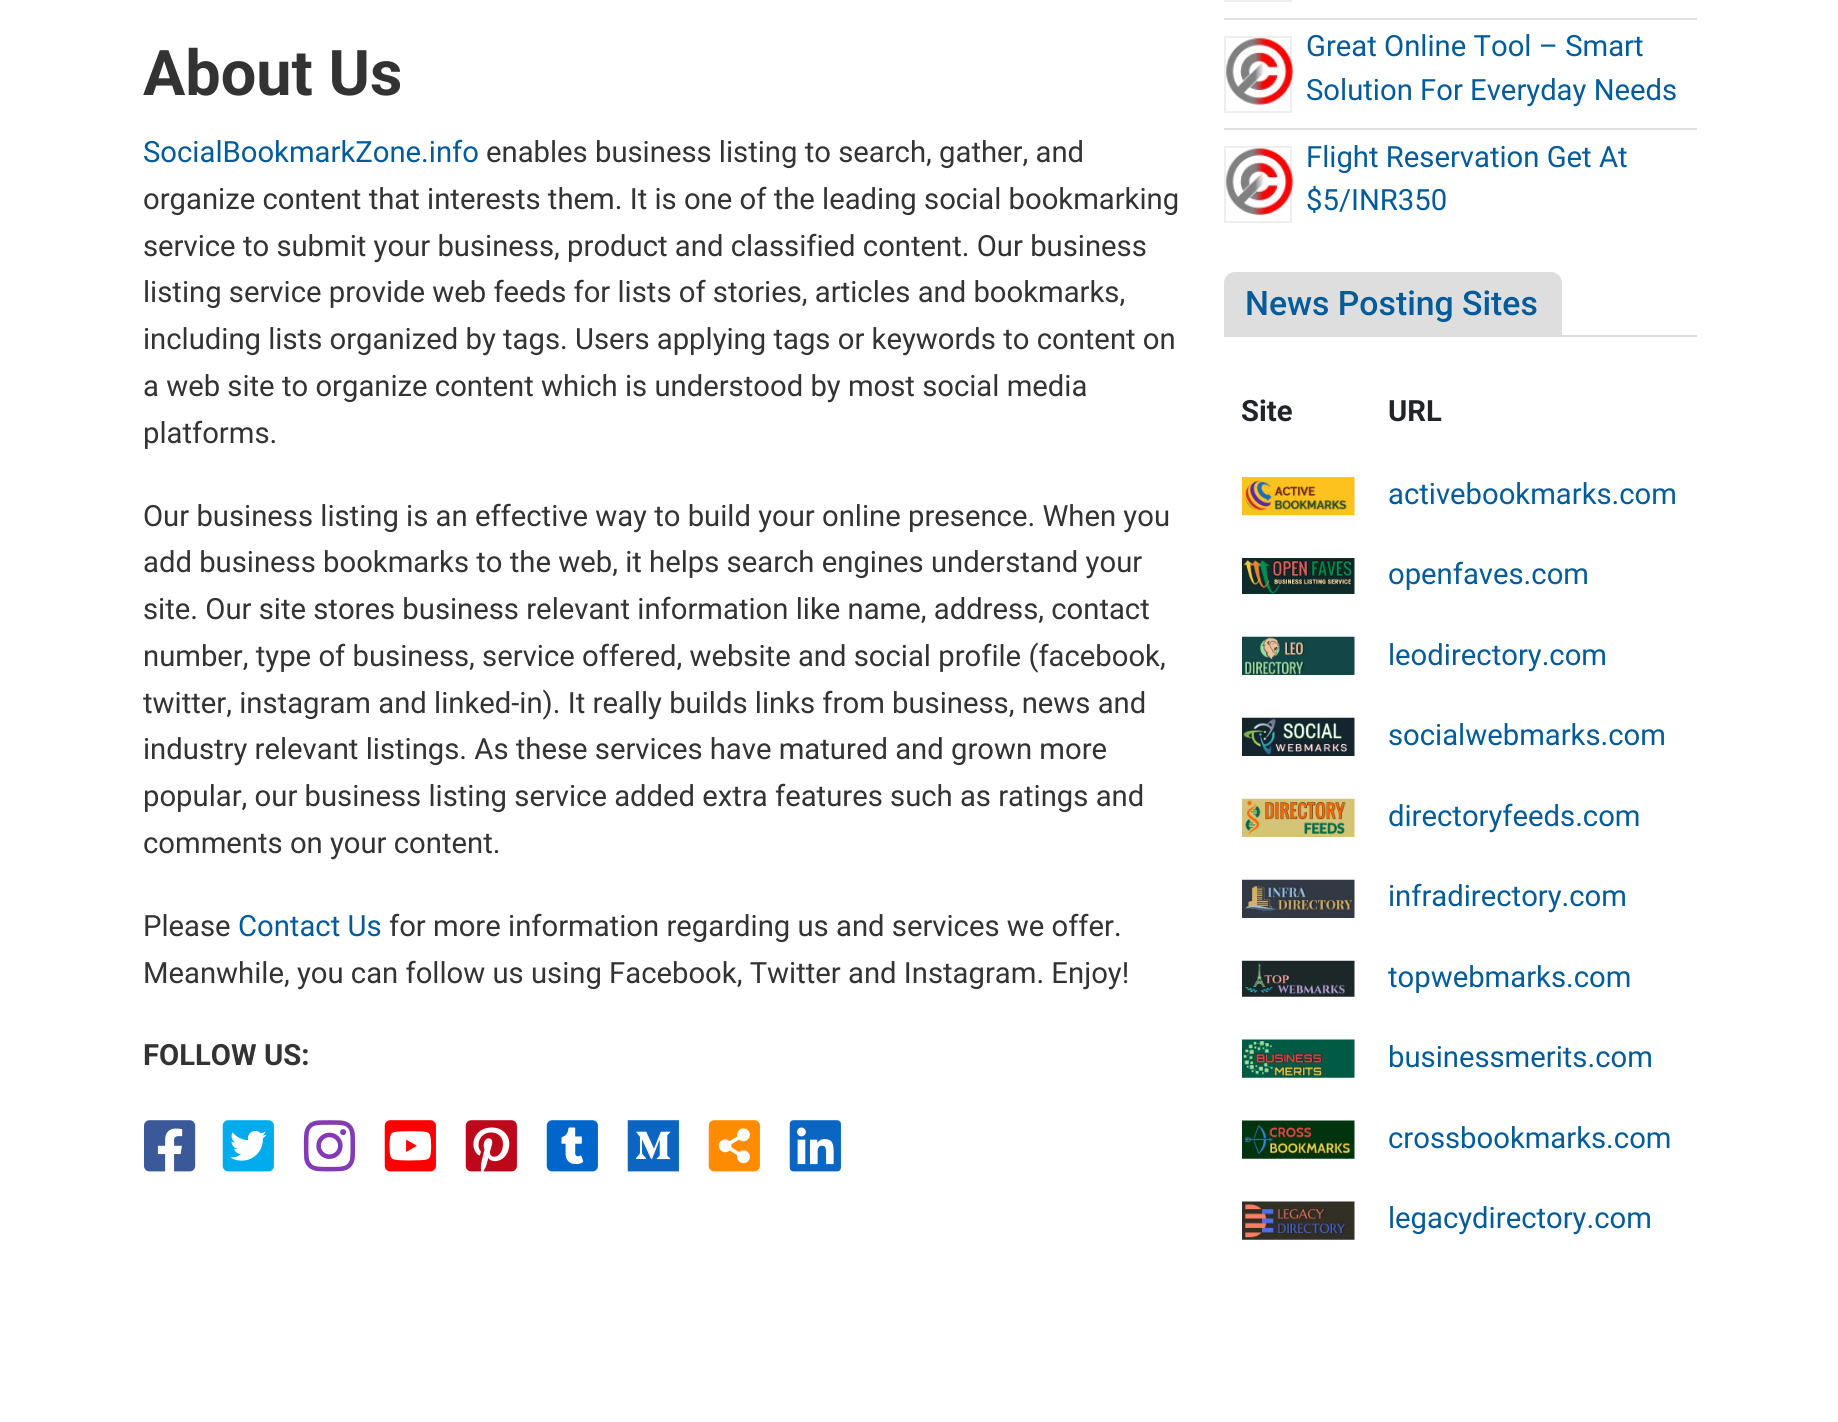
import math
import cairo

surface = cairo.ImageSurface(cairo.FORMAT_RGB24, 1838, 1422)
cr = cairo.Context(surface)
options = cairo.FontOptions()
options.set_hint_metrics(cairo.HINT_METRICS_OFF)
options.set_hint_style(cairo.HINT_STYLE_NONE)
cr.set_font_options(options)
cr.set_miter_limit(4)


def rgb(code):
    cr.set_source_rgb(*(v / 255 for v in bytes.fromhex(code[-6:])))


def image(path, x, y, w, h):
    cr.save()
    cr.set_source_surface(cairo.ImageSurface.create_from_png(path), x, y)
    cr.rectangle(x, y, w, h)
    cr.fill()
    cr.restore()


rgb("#ffffff")
cr.paint()
image("img/1.png", 144, 1120, 52, 52)
image("img/2.png", 222, 1120, 52, 52)
image("img/3.png", 303, 1120, 53, 52)
image("img/4.png", 384, 1120, 52, 52)
image("img/5.png", 465, 1120, 52, 52)
image("img/6.png", 546, 1120, 52, 52)
image("img/7.png", 627, 1120, 52, 52)
image("img/8.png", 708, 1120, 52, 52)
image("img/9.png", 789, 1120, 52, 52)
rgb("#e0e0e0")
cr.rectangle(1224, 18, 473, 2)
cr.fill()
cr.rectangle(1225, -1, 66, 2)
rgb("#eeeeee")
cr.stroke()
rgb("#e0e0e0")
cr.rectangle(1224, 128, 473, 2)
cr.fill()
cr.rectangle(1225, 37, 66, 75)
rgb("#eeeeee")
cr.stroke()
image("img/10.png", 1226, 38, 67, 67)
cr.rectangle(1225, 147, 66, 75)
cr.stroke()
image("img/11.png", 1226, 148, 67, 67)
rgb("#dedede")
cr.rectangle(1224, 335, 473, 2)
cr.fill()
cr.new_path()
cr.move_to(1235, 272)
cr.line_to(1551, 272)
cr.curve_to(1557, 272, 1562, 277, 1562, 283)
cr.line_to(1562, 335)
cr.line_to(1224, 335)
cr.line_to(1224, 283)
cr.curve_to(1224, 277, 1229, 272, 1235, 272)
cr.close_path()
cr.fill()
image("img/12.png", 1242, 477, 113, 39)
image("img/13.png", 1242, 558, 113, 36)
image("img/14.png", 1242, 636, 113, 39)
image("img/15.png", 1242, 717, 113, 39)
image("img/16.png", 1242, 798, 113, 39)
image("img/17.png", 1242, 879, 113, 39)
image("img/18.png", 1242, 960, 113, 37)
image("img/19.png", 1242, 1039, 113, 39)
image("img/20.png", 1242, 1120, 113, 39)
image("img/21.png", 1242, 1201, 113, 39)
cr.select_font_face("Roboto", cairo.FONT_SLANT_NORMAL, cairo.FONT_WEIGHT_BOLD)
cr.set_font_size(63)
rgb("#333333")
cr.move_to(143, 95)
cr.show_text("About Us")
cr.select_font_face("Roboto")
cr.set_font_size(29.25)
rgb("#045b99")
cr.move_to(143, 162)
cr.show_text("SocialBookmarkZone.info")
rgb("#333333")
for x, y, s in [
    (486, 162, "enables business listing to search, gather, and"),
    (143, 209, "organize content that interests them. It is one of the leading social bookmarking"),
    (143, 256, "service to submit your business, product and classified content. Our business"),
    (143, 302, "listing service provide web feeds for lists of stories, articles and bookmarks,"),
    (143, 349, "including lists organized by tags. Users applying tags or keywords to content on"),
    (143, 396, "a web site to organize content which is understood by most social media"),
    (143, 443, "platforms."),
    (143, 526, "Our business listing is an effective way to build your online presence. When you"),
    (143, 572, "add business bookmarks to the web, it helps search engines understand your"),
    (143, 619, "site. Our site stores business relevant information like name, address, contact"),
    (143, 666, "number, type of business, service offered, website and social profile (facebook,"),
    (143, 713, "twitter, instagram and linked-in). It really builds links from business, news and"),
    (143, 759, "industry relevant listings. As these services have matured and grown more"),
    (143, 806, "popular, our business listing service added extra features such as ratings and"),
    (143, 853, "comments on your content."),
    (143, 936, "Please"),
]:
    cr.move_to(x, y)
    cr.show_text(s)
rgb("#045b99")
cr.move_to(238, 936)
cr.show_text("Contact Us")
rgb("#333333")
cr.move_to(389, 936)
cr.show_text("for more information regarding us and services we offer.")
cr.move_to(143, 983)
cr.show_text("Meanwhile, you can follow us using Facebook, Twitter and Instagram. Enjoy!")
cr.select_font_face("Roboto", cairo.FONT_SLANT_NORMAL, cairo.FONT_WEIGHT_BOLD)
cr.move_to(143, 1065)
cr.show_text("FOLLOW US:")
cr.select_font_face("Roboto")
rgb("#045b99")
for x, y, s in [
    (1306, 56, "Great Online Tool – Smart"),
    (1306, 100, "Solution For Everyday Needs"),
    (1306, 167, "Flight Reservation Get At"),
    (1306, 210, "$5/INR350"),
]:
    cr.move_to(x, y)
    cr.show_text(s)
cr.select_font_face("Roboto Medium")
cr.set_font_size(33.75)
cr.move_to(1245, 315)
cr.show_text("News Posting Sites")
cr.select_font_face("Roboto", cairo.FONT_SLANT_NORMAL, cairo.FONT_WEIGHT_BOLD)
cr.set_font_size(29.25)
rgb("#212529")
cr.move_to(1241, 421)
cr.show_text("Site")
cr.move_to(1388, 421)
cr.show_text("URL")
cr.select_font_face("Roboto")
rgb("#045b99")
for x, y, s in [
    (1388, 504, "activebookmarks.com"),
    (1388, 584, "openfaves.com"),
    (1388, 665, "leodirectory.com"),
    (1388, 745, "socialwebmarks.com"),
    (1388, 826, "directoryfeeds.com"),
    (1388, 906, "infradirectory.com"),
    (1388, 987, "topwebmarks.com"),
    (1388, 1067, "businessmerits.com"),
    (1388, 1148, "crossbookmarks.com"),
    (1388, 1228, "legacydirectory.com"),
]:
    cr.move_to(x, y)
    cr.show_text(s)
surface.write_to_png("page.png")
